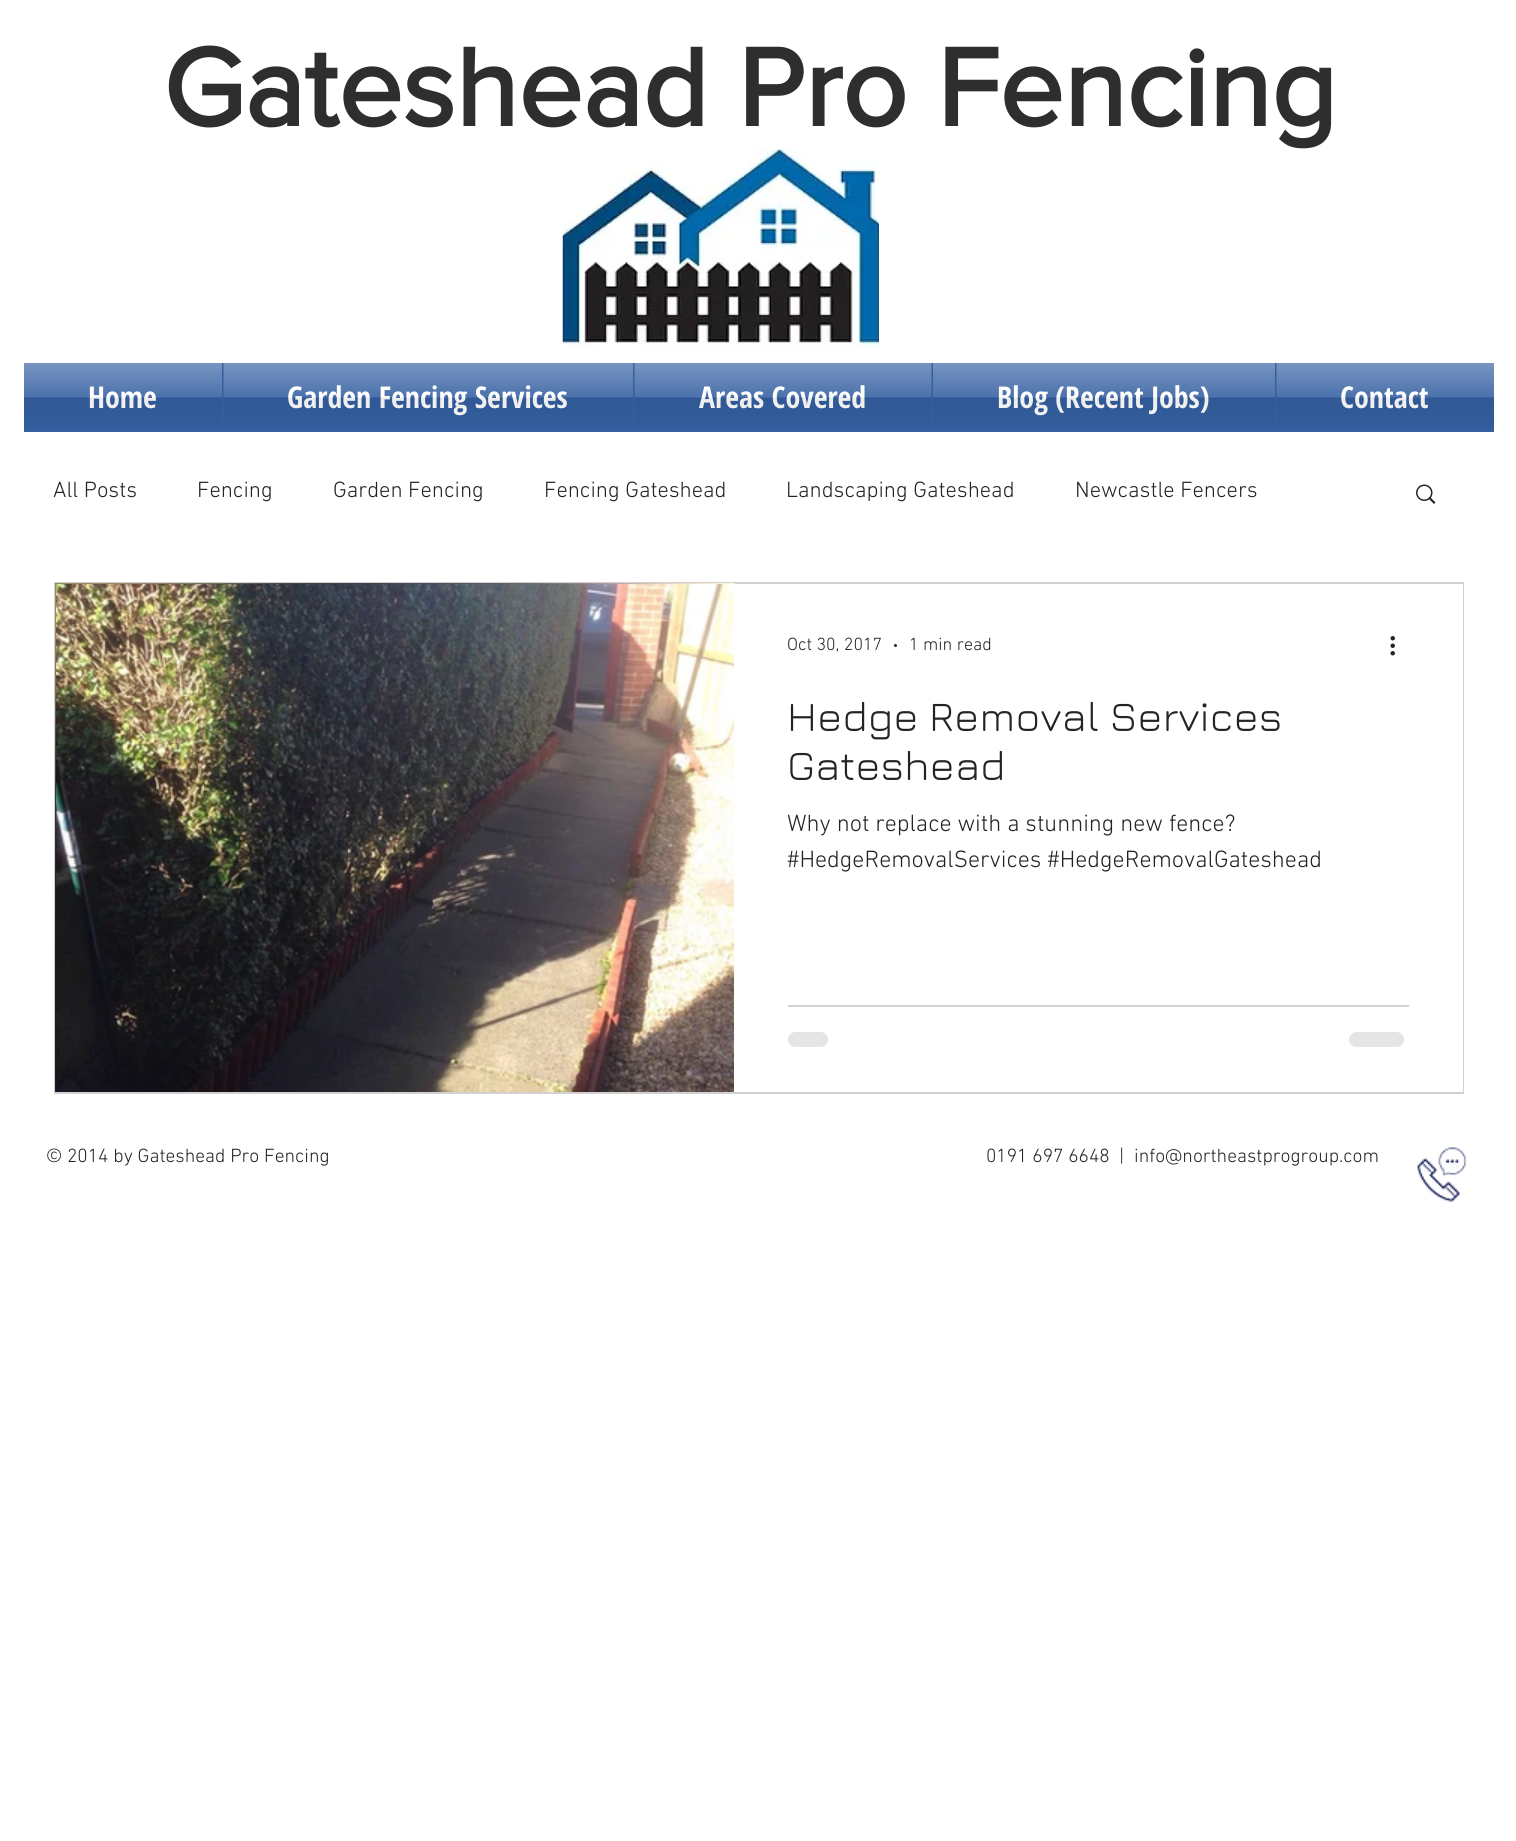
import math
import cairo

surface = cairo.ImageSurface(cairo.FORMAT_RGB24, 1516, 1841)
cr = cairo.Context(surface)
options = cairo.FontOptions()
options.set_hint_metrics(cairo.HINT_METRICS_OFF)
options.set_hint_style(cairo.HINT_STYLE_NONE)
cr.set_font_options(options)
cr.set_miter_limit(4)


def rgb(code):
    cr.set_source_rgb(*(v / 255 for v in bytes.fromhex(code[-6:])))


def rrect(x, y, w, h, r):
    cr.new_sub_path()
    for i, (u, v) in enumerate([(x + w - r, y + h - r), (x + r, y + h - r), (x + r, y + r), (x + w - r, y + r)]):
        cr.arc(u, v, r, i * math.pi / 2, (i + 1) * math.pi / 2)
    cr.close_path()


def image(path, x, y, w, h):
    cr.save()
    cr.set_source_surface(cairo.ImageSurface.create_from_png(path), x, y)
    cr.rectangle(x, y, w, h)
    cr.fill()
    cr.restore()


rgb("#ffffff")
cr.paint()
image("img/1.png", 562, 148, 317, 200)
rgb("#345fa1")
cr.rectangle(24, 363, 1470, 69)
cr.fill()
image("img/7.png", 1416, 484, 20, 20)
cr.rectangle(55, 583, 1408, 510)
rgb("#d1d1d1")
cr.stroke()
image("img/8.png", 55, 583, 680, 509)
image("img/9.png", 56, 584, 678, 508)
rgb("#ffffff")
cr.rectangle(734, 584, 729, 508)
cr.fill()
rgb("#242424")
cr.arc(895.5, 645.5, 1.5, 0, 2 * math.pi)
cr.fill()
image("img/10.png", 1390, 636, 5, 20)
rgb("#d3d3d3")
cr.rectangle(788, 1005, 621, 2)
cr.fill()
rgb("#e5e5e5")
rrect(788, 1032, 40, 15, 7.5)
cr.fill()
rrect(1349, 1032, 55, 15, 7.5)
cr.fill()
image("img/11.png", 1417, 1147, 50, 55)
cr.select_font_face("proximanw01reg", cairo.FONT_SLANT_NORMAL, cairo.FONT_WEIGHT_BOLD)
cr.set_font_size(114)
rgb("#2f2e2e")
cr.move_to(163, 126)
cr.show_text("Gateshead Pro Fencing")
cr.select_font_face("Open Sans Condensed", cairo.FONT_SLANT_NORMAL, cairo.FONT_WEIGHT_BOLD)
cr.set_font_size(30)
rgb("#ffffff")
cr.move_to(88, 408)
cr.show_text("Home")
image("img/2.png", 24, 363, 198, 64)
cr.move_to(287, 408)
cr.show_text("Garden Fencing Services")
image("img/3.png", 223, 363, 410, 64)
cr.move_to(699, 408)
cr.show_text("Areas Covered")
image("img/4.png", 634, 363, 298, 64)
cr.move_to(997, 408)
cr.show_text("Blog (Recent Jobs)")
image("img/5.png", 933, 363, 342, 64)
cr.move_to(1340, 408)
cr.show_text("Contact")
image("img/6.png", 1276, 363, 218, 64)
cr.select_font_face("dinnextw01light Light")
cr.set_font_size(22.5)
rgb("#242424")
for x, y, s in [
    (53, 497, "All Posts"),
    (197, 497, "Fencing"),
    (333, 497, "Garden Fencing"),
    (544, 497, "Fencing Gateshead"),
    (786, 497, "Landscaping Gateshead"),
    (1075, 497, "Newcastle Fencers"),
]:
    cr.move_to(x, y)
    cr.show_text(s)
cr.set_font_size(18)
cr.move_to(787, 650)
cr.show_text("Oct 30, 2017")
cr.move_to(909, 650)
cr.show_text("1 min read")
cr.select_font_face("Jura")
cr.set_font_size(42)
cr.move_to(787, 731)
cr.show_text("Hedge Removal Services")
cr.move_to(787, 780)
cr.show_text("Gateshead")
cr.save()
cr.rectangle(788, 807, 621, 72)
cr.clip()
cr.select_font_face("dinnextw01light Light")
cr.set_font_size(24)
cr.move_to(787, 831)
cr.show_text("Why not replace with a stunning new fence?")
cr.restore()
cr.select_font_face("dinnextw01light Light")
cr.set_font_size(24)
cr.move_to(787, 867)
cr.show_text("#HedgeRemovalServices #HedgeRemovalGateshead")
cr.set_font_size(19.5)
for x, y, s in [
    (46, 1162, "© 2014 by Gateshead Pro Fencing"),
    (986, 1162, "0191 697 6648  |"),
    (1134, 1162, "info@northeastprogroup.com"),
]:
    cr.move_to(x, y)
    cr.show_text(s)
surface.write_to_png("page.png")
